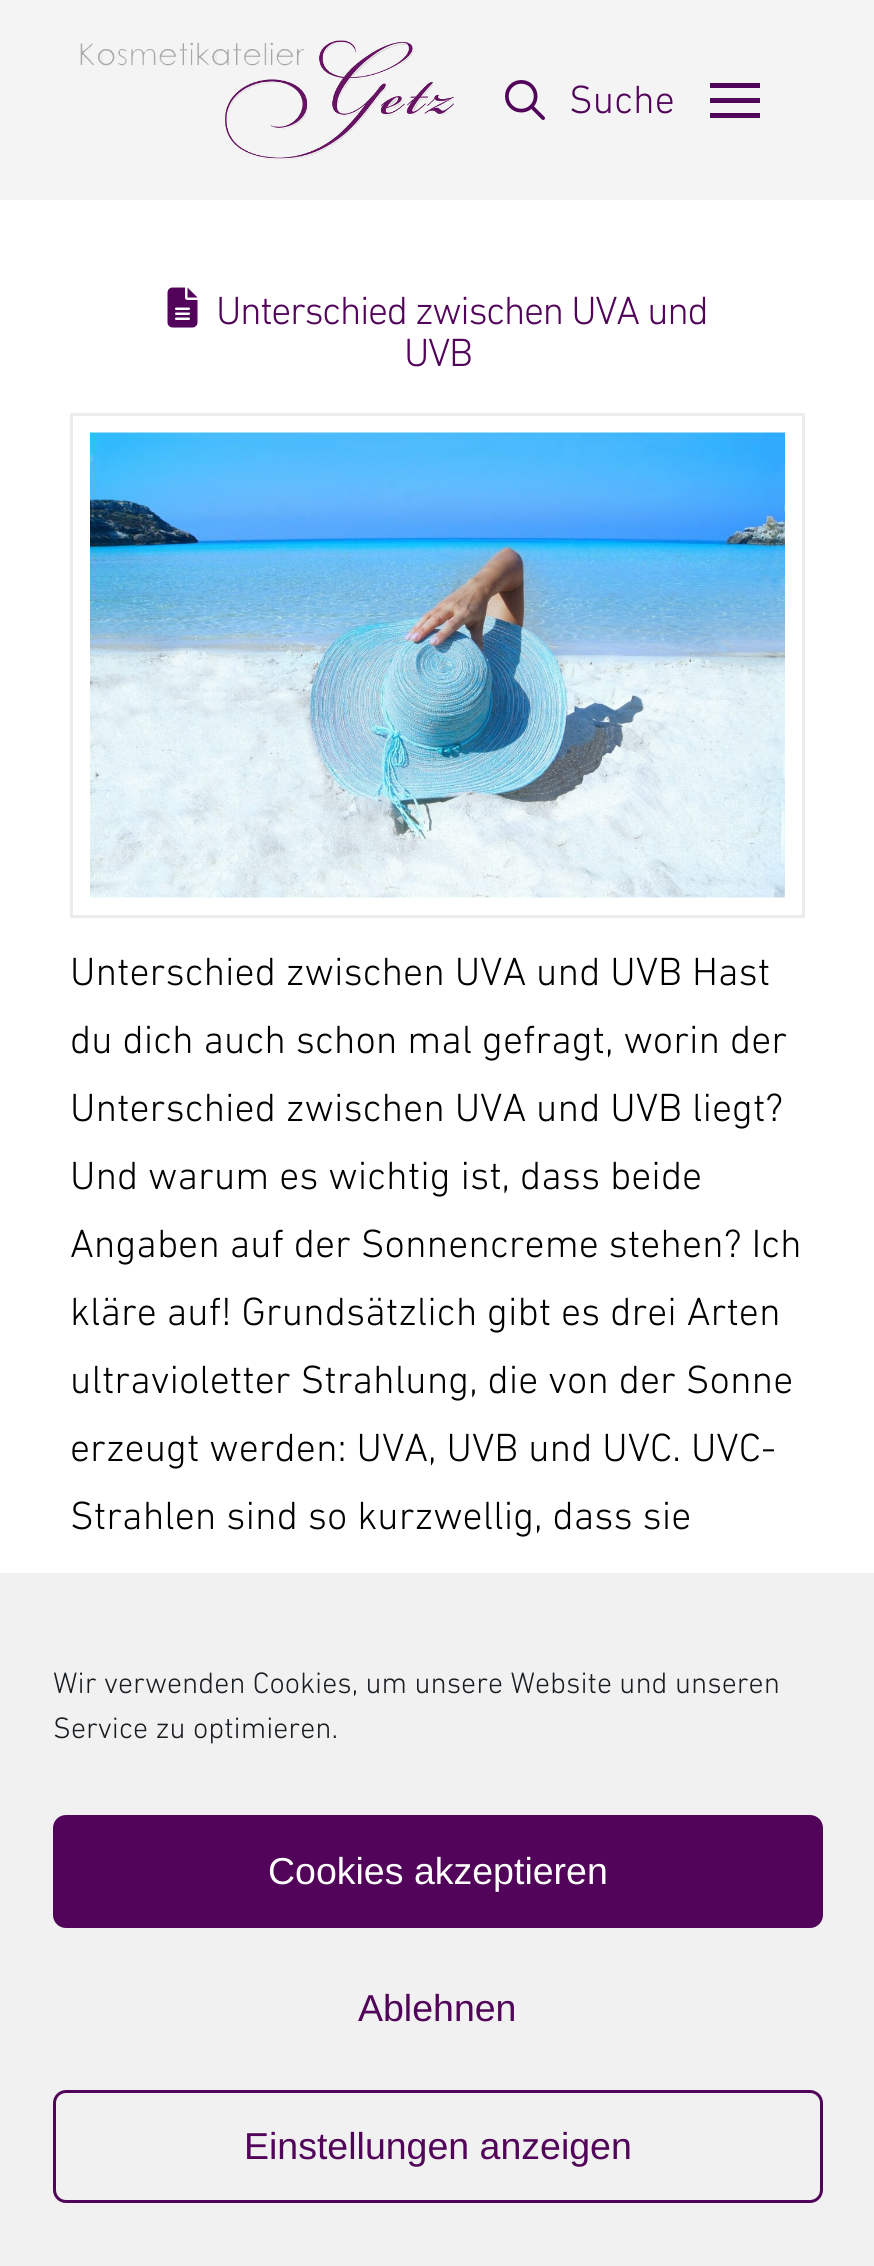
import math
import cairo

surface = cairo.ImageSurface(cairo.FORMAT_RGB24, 874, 2266)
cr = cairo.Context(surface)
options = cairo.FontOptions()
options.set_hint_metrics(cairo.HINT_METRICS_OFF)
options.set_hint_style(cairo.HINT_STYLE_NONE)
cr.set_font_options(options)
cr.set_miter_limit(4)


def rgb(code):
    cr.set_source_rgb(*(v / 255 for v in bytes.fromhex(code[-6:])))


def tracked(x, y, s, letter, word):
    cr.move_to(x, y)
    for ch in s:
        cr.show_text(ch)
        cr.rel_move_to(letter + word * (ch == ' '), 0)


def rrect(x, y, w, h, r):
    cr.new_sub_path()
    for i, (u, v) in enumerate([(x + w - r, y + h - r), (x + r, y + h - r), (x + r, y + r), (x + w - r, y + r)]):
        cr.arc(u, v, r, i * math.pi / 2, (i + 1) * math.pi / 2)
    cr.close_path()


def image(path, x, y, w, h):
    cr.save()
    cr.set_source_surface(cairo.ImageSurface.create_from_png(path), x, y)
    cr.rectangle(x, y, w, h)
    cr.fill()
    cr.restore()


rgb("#ffffff")
cr.paint()
rgb("#f4f4f4")
cr.rectangle(0, 0, 874, 200)
cr.fill()
image("img/1.png", 80, 40, 374, 120)
image("img/2.png", 505, 80, 40, 40)
for x, y, w, h, color in [
    (710, 83, 50, 5, "#510459"),
    (710, 98, 50, 5, "#510459"),
    (710, 113, 50, 5, "#510459"),
]:
    rgb(color)
    cr.rectangle(x, y, w, h)
    cr.fill()
image("img/3.png", 167, 287, 31, 41)
cr.rectangle(71.5, 414.5, 732, 502)
rgb("#ececec")
cr.set_line_width(3)
cr.stroke()
image("img/4.png", 90, 432, 695, 466)
rgb("#f1f1f1")
cr.rectangle(0, 1573, 874, 693)
cr.fill()
rgb("#510459")
rrect(54.5, 1816.5, 767, 110, 11.5)
cr.fill_preserve()
cr.stroke()
rrect(54.5, 2091.5, 767, 110, 11.5)
cr.stroke()
cr.select_font_face("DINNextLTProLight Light")
cr.set_font_size(40)
cr.move_to(569, 113)
cr.show_text("Suche")
tracked(216, 324, "Unterschied zwischen UVA und", -1.4, 0)
tracked(404, 366, "UVB", -1.4, 0)
rgb("#000000")
for x, y, s in [
    (70, 985, "Unterschied zwischen UVA und UVB Hast"),
    (70, 1053, "du dich auch schon mal gefragt, worin der"),
    (70, 1121, "Unterschied zwischen UVA und UVB liegt?"),
    (70, 1189, "Und warum es wichtig ist, dass beide"),
    (70, 1257, "Angaben auf der Sonnencreme stehen? Ich"),
    (70, 1325, "kläre auf! Grundsätzlich gibt es drei Arten"),
    (70, 1393, "ultravioletter Strahlung, die von der Sonne"),
    (70, 1461, "erzeugt werden: UVA, UVB und UVC. UVC-"),
    (70, 1529, "Strahlen sind so kurzwellig, dass sie"),
]:
    cr.move_to(x, y)
    cr.show_text(s)
cr.set_font_size(30)
rgb("#191e23")
cr.move_to(53, 1693)
cr.show_text("Wir verwenden Cookies, um unsere Website und unseren")
cr.move_to(53, 1738)
cr.show_text("Service zu optimieren.")
cr.select_font_face("Liberation Sans")
cr.set_font_size(37.5)
rgb("#ffffff")
cr.move_to(268, 1884)
cr.show_text("Cookies akzeptieren")
rgb("#510459")
cr.move_to(358, 2021)
cr.show_text("Ablehnen")
cr.move_to(244, 2159)
cr.show_text("Einstellungen anzeigen")
surface.write_to_png("page.png")
